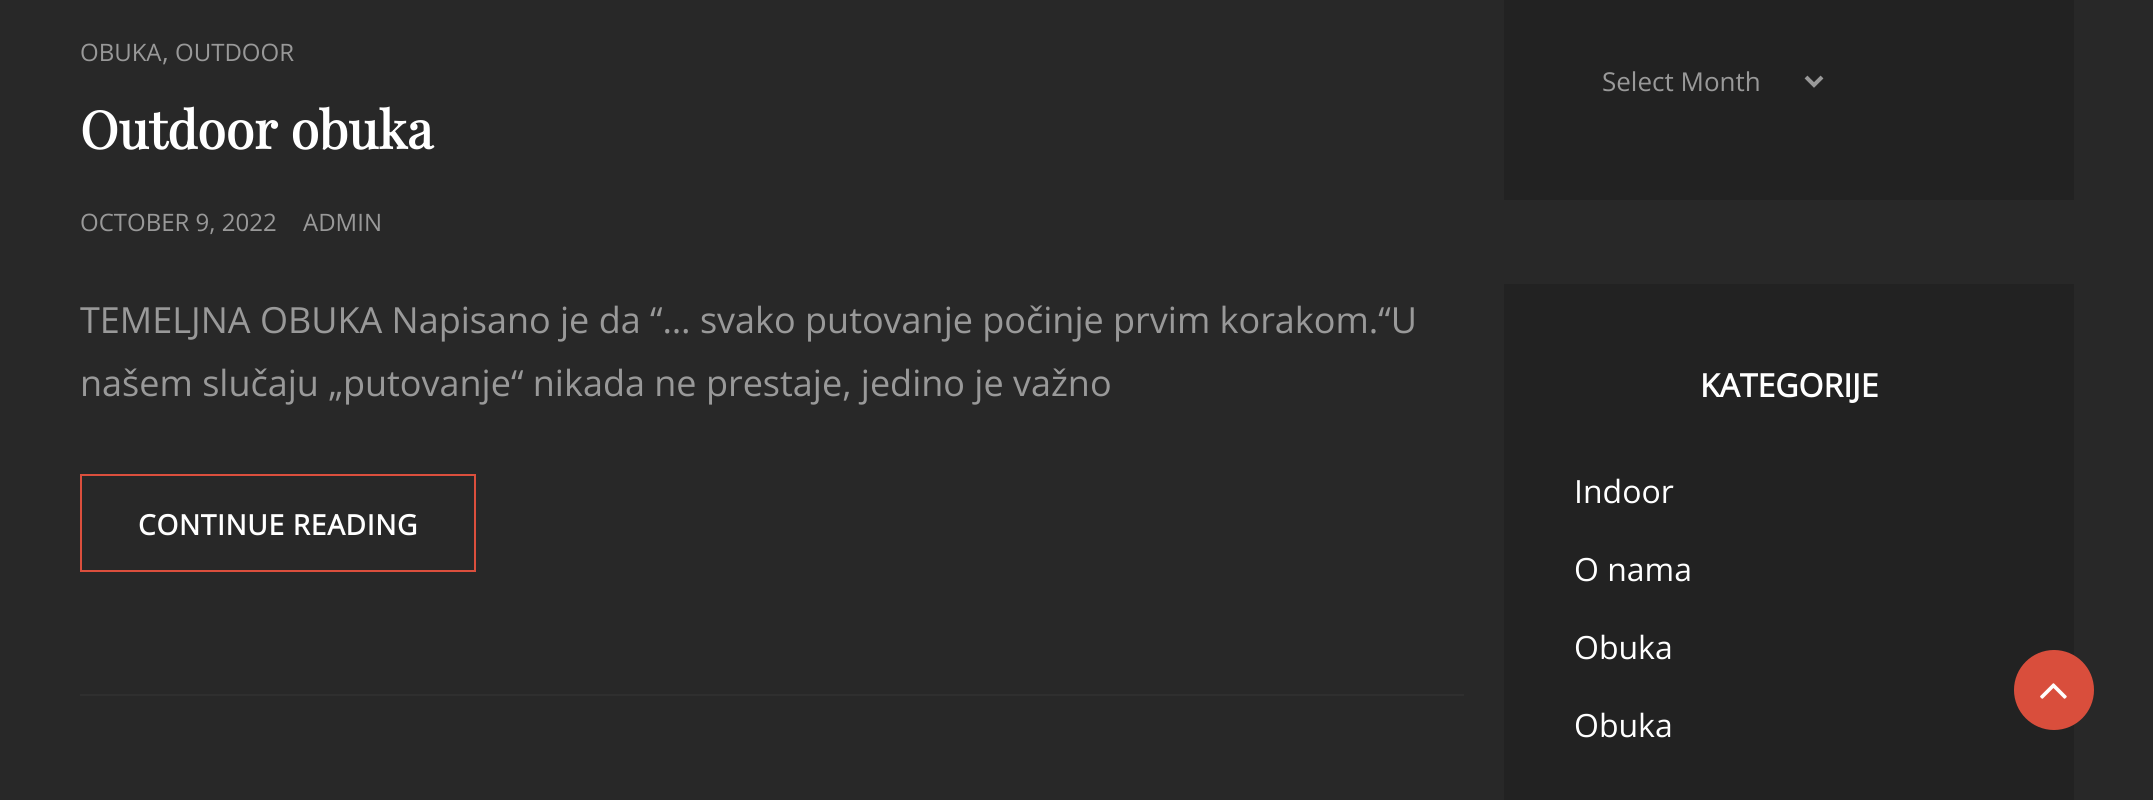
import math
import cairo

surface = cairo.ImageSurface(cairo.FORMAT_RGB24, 2153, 800)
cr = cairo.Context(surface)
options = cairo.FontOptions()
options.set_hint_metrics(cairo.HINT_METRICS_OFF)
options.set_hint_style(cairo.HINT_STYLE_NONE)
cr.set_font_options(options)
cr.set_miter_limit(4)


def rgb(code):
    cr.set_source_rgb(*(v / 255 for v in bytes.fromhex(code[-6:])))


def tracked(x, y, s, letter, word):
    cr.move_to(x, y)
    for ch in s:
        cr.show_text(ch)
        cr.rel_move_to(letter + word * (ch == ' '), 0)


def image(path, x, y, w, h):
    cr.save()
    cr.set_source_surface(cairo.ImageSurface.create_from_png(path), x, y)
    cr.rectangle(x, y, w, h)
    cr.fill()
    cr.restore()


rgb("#282828")
cr.paint()
rgb("#2f2f2f")
cr.rectangle(80, 694, 1384, 2)
cr.fill()
cr.rectangle(81, 475, 394, 96)
rgb("#db4f3d")
cr.stroke()
rgb("#222222")
cr.rectangle(1504, 0, 570, 200)
cr.fill()
cr.new_path()
cr.move_to(1806, 77)
cr.line_to(1814, 85)
cr.line_to(1822, 77)
rgb("#999999")
cr.set_line_width(4)
cr.stroke()
rgb("#222222")
cr.rectangle(1504, 284, 570, 516)
cr.fill()
cr.set_source_rgba(0.859, 0.31, 0.239, 0.99)
cr.arc(2054, 690, 40, 0, 2 * math.pi)
cr.fill()
image("img/1.png", 2040, 683, 27, 16)
cr.select_font_face("Open Sans")
cr.set_font_size(24)
rgb("#999999")
cr.move_to(80, 61)
cr.show_text("OBUKA")
cr.set_font_size(26)
cr.move_to(162, 61)
cr.show_text(",")
cr.set_font_size(24)
cr.move_to(175, 61)
cr.show_text("OUTDOOR")
cr.select_font_face("Playfair Display", cairo.FONT_SLANT_NORMAL, cairo.FONT_WEIGHT_BOLD)
cr.set_font_size(52)
rgb("#ffffff")
cr.move_to(80, 149)
cr.show_text("Outdoor obuka")
cr.select_font_face("Open Sans")
cr.set_font_size(24)
rgb("#999999")
cr.move_to(80, 231)
cr.show_text("OCTOBER 9, 2022")
cr.move_to(303, 231)
cr.show_text("ADMIN")
cr.set_font_size(36)
cr.move_to(80, 333)
cr.show_text("TEMELJNA OBUKA Napisano je da “… svako putovanje počinje prvim korakom.“U")
cr.move_to(80, 396)
cr.show_text("našem slučaju „putovanje“ nikada ne prestaje, jedino je važno")
cr.select_font_face("Open Sans", cairo.FONT_SLANT_NORMAL, cairo.FONT_WEIGHT_BOLD)
cr.set_font_size(28)
rgb("#ffffff")
tracked(138, 535, "CONTINUE READING", 0.75, 0)
cr.select_font_face("Open Sans")
cr.set_font_size(26)
rgb("#999999")
cr.move_to(1602, 91)
cr.show_text("Select Month")
cr.select_font_face("Open Sans", cairo.FONT_SLANT_NORMAL, cairo.FONT_WEIGHT_BOLD)
cr.set_font_size(32)
rgb("#ffffff")
cr.move_to(1700, 397)
cr.show_text("KATEGORIJE")
cr.select_font_face("Open Sans")
for x, y, s in [
    (1574, 503, "Indoor"),
    (1574, 581, "O nama"),
    (1574, 659, "Obuka"),
    (1574, 737, "Obuka"),
]:
    cr.move_to(x, y)
    cr.show_text(s)
surface.write_to_png("page.png")
